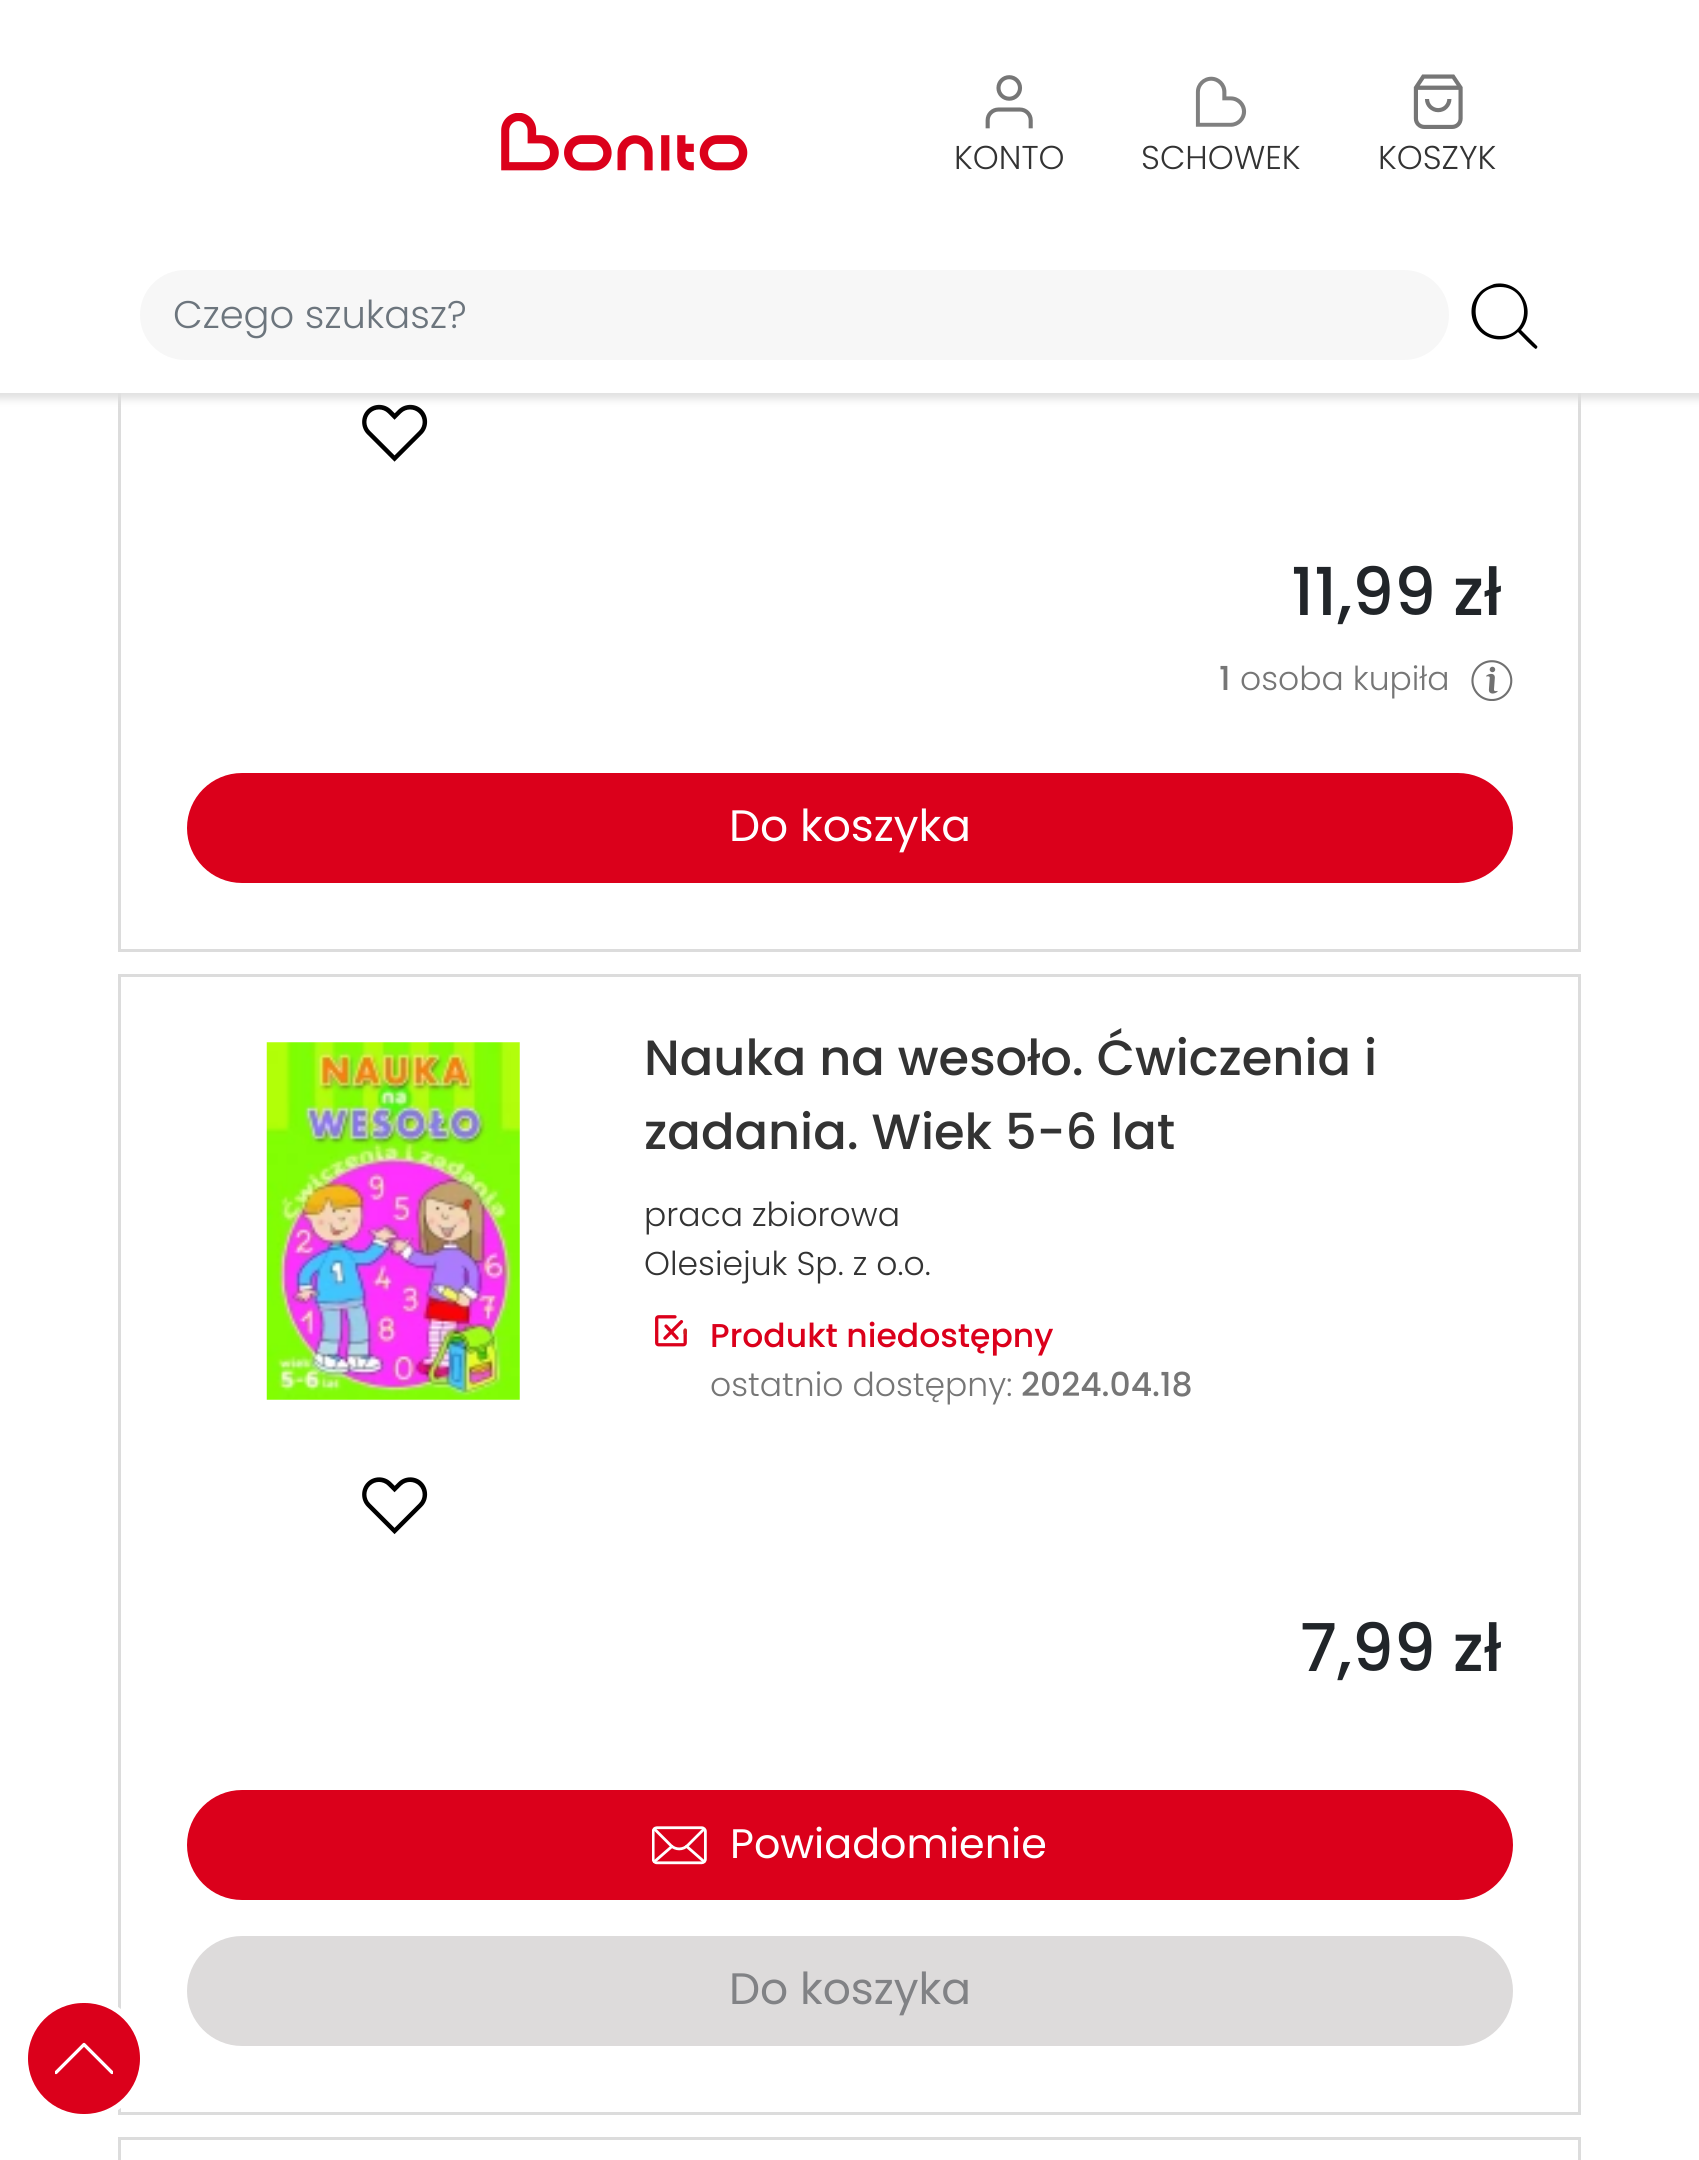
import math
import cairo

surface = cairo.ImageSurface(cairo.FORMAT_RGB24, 1699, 2160)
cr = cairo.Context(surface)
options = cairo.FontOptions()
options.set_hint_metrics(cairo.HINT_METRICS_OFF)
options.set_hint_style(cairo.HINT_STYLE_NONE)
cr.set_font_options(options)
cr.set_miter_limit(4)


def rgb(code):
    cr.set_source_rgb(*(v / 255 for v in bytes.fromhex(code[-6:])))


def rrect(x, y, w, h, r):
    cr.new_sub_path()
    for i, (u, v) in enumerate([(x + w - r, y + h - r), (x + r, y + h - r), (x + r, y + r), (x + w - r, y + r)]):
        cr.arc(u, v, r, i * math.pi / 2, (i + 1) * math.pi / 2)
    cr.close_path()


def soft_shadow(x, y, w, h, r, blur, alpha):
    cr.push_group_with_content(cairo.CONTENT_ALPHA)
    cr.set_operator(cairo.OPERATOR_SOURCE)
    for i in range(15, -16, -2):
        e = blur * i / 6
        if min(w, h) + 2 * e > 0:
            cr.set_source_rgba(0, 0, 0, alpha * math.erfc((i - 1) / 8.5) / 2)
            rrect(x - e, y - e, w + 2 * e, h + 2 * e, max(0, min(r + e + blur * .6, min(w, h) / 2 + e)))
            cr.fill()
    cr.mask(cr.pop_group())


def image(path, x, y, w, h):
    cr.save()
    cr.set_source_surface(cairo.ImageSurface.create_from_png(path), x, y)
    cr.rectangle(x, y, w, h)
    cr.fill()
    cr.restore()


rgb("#ffffff")
cr.paint()
cr.rectangle(119.5, -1.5, 1460, 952)
rgb("#dcdcdc")
cr.set_line_width(3)
cr.stroke()
image("img/5.png", 362, 404, 66, 58)
rgb("#e0e0e0")
soft_shadow(-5, -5, 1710, 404, 0, 4, 1)
rgb("#ffffff")
cr.rectangle(0, 0, 1699, 393)
cr.fill()
image("img/1.png", 501, 113, 247, 58)
image("img/2.png", 985, 75, 48, 54)
image("img/3.png", 1195, 76, 52, 51)
image("img/4.png", 1413, 74, 50, 55)
rgb("#f7f7f7")
rrect(140, 270, 1309, 90, 45)
cr.fill()
rgb("#000000")
cr.new_path()
cr.move_to(1537, 346)
cr.line_to(1521, 330)
cr.curve_to(1538, 310, 1520, 279, 1494, 284)
cr.curve_to(1489, 286, 1484, 288, 1480, 292)
cr.curve_to(1476, 296, 1473, 301, 1472, 306)
cr.curve_to(1467, 333, 1499, 350, 1518, 332)
cr.curve_to(1520, 334, 1534, 349, 1536, 349)
cr.curve_to(1537, 348, 1538, 347, 1537, 346)
cr.close_path()
cr.move_to(1500, 336)
cr.curve_to(1468, 336, 1467, 287, 1500, 287)
cr.curve_to(1532, 287, 1532, 336, 1500, 336)
cr.close_path()
cr.fill()
image("img/6.png", 1471, 660, 42, 41)
rgb("#db001b")
rrect(187, 773, 1326, 110, 55)
cr.fill()
cr.rectangle(119.5, 975.5, 1460, 1138)
rgb("#dcdcdc")
cr.stroke()
image("img/7.png", 266, 1042, 254, 358)
image("img/8.png", 362, 1477, 66, 58)
image("img/9.png", 655, 1315, 32, 32)
rgb("#db001b")
rrect(187, 1790, 1326, 110, 55)
cr.fill()
image("img/10.png", 652, 1826, 55, 39)
rgb("#dddbdb")
rrect(187, 1936, 1326, 110, 55)
cr.fill()
cr.rectangle(119.5, 2138.5, 1460, 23)
rgb("#dcdcdc")
cr.stroke()
rgb("#db001b")
rrect(25, 2000, 118, 117, 58.5)
cr.fill_preserve()
rgb("#ffffff")
cr.set_line_width(6)
cr.stroke()
cr.save()
cr.rectangle(55, 2030, 58, 57)
cr.clip()
cr.new_path()
cr.move_to(112, 2072.5)
cr.line_to(84, 2044.5)
cr.line_to(56, 2072.5)
cr.set_line_width(3.3)
cr.set_line_cap(cairo.LINE_CAP_ROUND)
cr.set_line_join(cairo.LINE_JOIN_ROUND)
cr.stroke()
cr.restore()
cr.select_font_face("Poppins Light")
cr.set_font_size(33)
rgb("#333333")
for x, y, s in [
    (954, 169, "KONTO"),
    (1141, 169, "SCHOWEK"),
    (1378, 169, "KOSZYK"),
]:
    cr.move_to(x, y)
    cr.show_text(s)
cr.set_font_size(38.5)
rgb("#6c757d")
cr.move_to(173, 328)
cr.show_text("Czego szukasz?")
cr.select_font_face("Poppins Medium")
cr.set_font_size(66)
rgb("#212529")
cr.move_to(1291, 615)
cr.show_text("11,99 zł")
cr.set_font_size(33)
rgb("#767676")
cr.move_to(1219, 690)
cr.show_text("1")
cr.select_font_face("Poppins Light")
cr.move_to(1240, 690)
cr.show_text("osoba kupiła")
cr.select_font_face("Poppins")
cr.set_font_size(44)
rgb("#ffffff")
cr.move_to(729, 841)
cr.show_text("Do koszyka")
cr.select_font_face("Poppins Medium")
cr.set_font_size(49.5)
rgb("#333333")
cr.move_to(644, 1075)
cr.show_text("Nauka na wesoło. Ćwiczenia i")
cr.move_to(644, 1149)
cr.show_text("zadania. Wiek 5-6 lat")
cr.select_font_face("Poppins Light")
cr.set_font_size(33)
cr.move_to(644, 1226)
cr.show_text("praca zbiorowa")
cr.move_to(644, 1275)
cr.show_text("Olesiejuk Sp. z o.o.")
cr.select_font_face("Poppins Medium")
rgb("#db001b")
cr.move_to(710, 1347)
cr.show_text("Produkt niedostępny")
cr.select_font_face("Poppins Light")
rgb("#767676")
cr.move_to(710, 1396)
cr.show_text("ostatnio dostępny:")
cr.select_font_face("Poppins Medium")
cr.move_to(1021, 1396)
cr.show_text("2024.04.18")
cr.set_font_size(66)
rgb("#212529")
cr.move_to(1300, 1671)
cr.show_text("7,99 zł")
cr.select_font_face("Poppins")
cr.set_font_size(41.25)
rgb("#ffffff")
cr.move_to(730, 1858)
cr.show_text("Powiadomienie")
cr.set_font_size(44)
rgb("#818285")
cr.move_to(729, 2004)
cr.show_text("Do koszyka")
surface.write_to_png("page.png")
